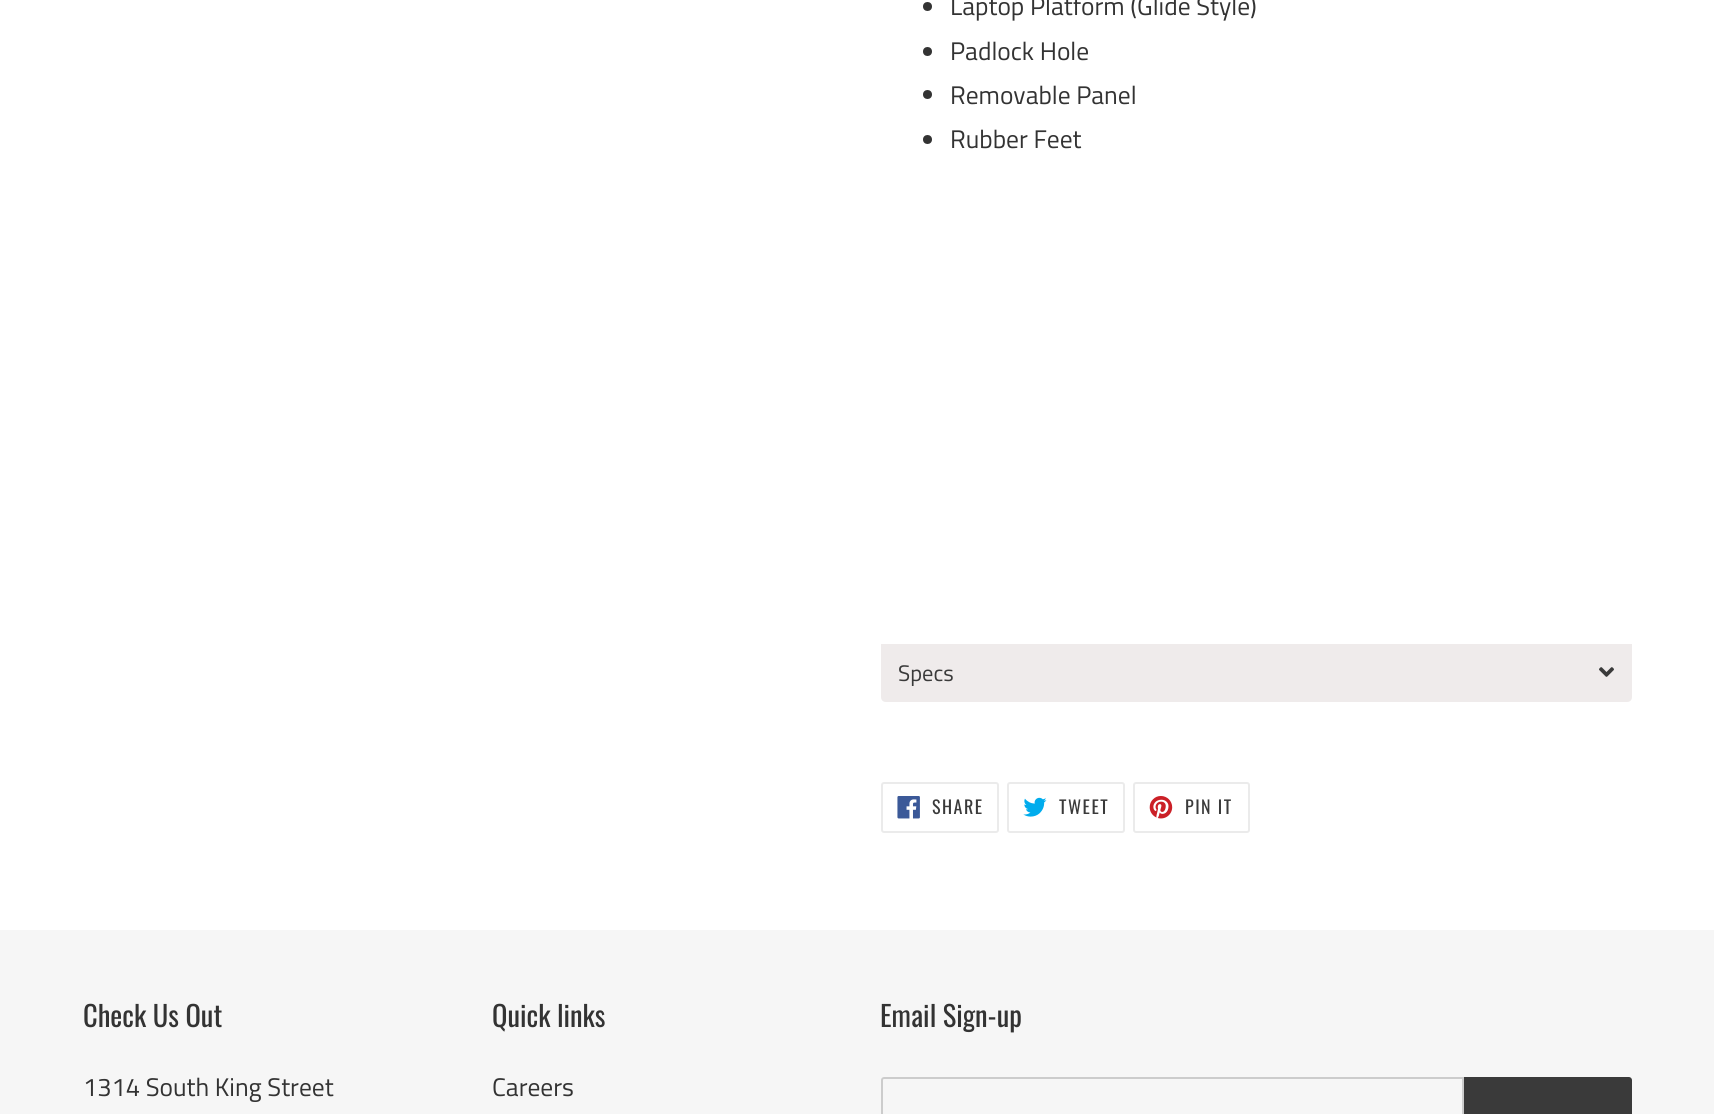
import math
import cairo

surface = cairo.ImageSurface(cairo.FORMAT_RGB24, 1714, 1114)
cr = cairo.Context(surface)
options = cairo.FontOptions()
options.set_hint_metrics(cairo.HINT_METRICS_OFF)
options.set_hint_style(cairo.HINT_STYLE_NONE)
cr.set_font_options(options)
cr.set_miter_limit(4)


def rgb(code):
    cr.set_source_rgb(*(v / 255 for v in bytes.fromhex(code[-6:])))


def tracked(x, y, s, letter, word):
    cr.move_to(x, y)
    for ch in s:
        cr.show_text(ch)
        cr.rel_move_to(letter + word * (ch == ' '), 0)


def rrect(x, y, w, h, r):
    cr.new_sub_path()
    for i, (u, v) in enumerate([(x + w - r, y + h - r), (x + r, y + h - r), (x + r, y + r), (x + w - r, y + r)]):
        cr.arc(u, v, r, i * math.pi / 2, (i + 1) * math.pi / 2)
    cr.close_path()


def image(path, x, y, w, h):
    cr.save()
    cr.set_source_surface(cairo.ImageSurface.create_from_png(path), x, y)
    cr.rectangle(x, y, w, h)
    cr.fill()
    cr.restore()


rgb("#ffffff")
cr.paint()
rgb("#333333")
cr.arc(927.5, 6.5, 4.5, 0, 2 * math.pi)
cr.fill()
cr.arc(927.5, 51.5, 4.5, 0, 2 * math.pi)
cr.fill()
cr.arc(927.5, 94.5, 4.5, 0, 2 * math.pi)
cr.fill()
cr.arc(927.5, 139.5, 4.5, 0, 2 * math.pi)
cr.fill()
rgb("#efebeb")
cr.new_path()
cr.move_to(881, 644)
cr.line_to(1632, 644)
cr.line_to(1632, 697)
cr.curve_to(1632, 700, 1630, 702, 1627, 702)
cr.line_to(886, 702)
cr.curve_to(883, 702, 881, 700, 881, 697)
cr.close_path()
cr.fill()
image("img/1.png", 1599, 667, 15, 10)
rrect(882, 783, 116, 49, 2)
rgb("#ebebeb")
cr.stroke()
image("img/2.png", 897, 796, 23, 23)
rrect(1008, 783, 116, 49, 2)
cr.stroke()
image("img/3.png", 1023, 797, 24, 20)
rrect(1134, 783, 115, 49, 2)
cr.stroke()
image("img/4.png", 1149, 796, 24, 23)
rgb("#f6f6f6")
cr.rectangle(0, 930, 1714, 184)
cr.fill()
cr.new_path()
cr.move_to(884, 1078)
cr.line_to(1463, 1078)
cr.line_to(1463, 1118)
cr.line_to(884, 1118)
cr.curve_to(883, 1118, 882, 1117, 882, 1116)
cr.line_to(882, 1080)
cr.curve_to(882, 1079, 883, 1078, 884, 1078)
cr.close_path()
rgb("#cccccc")
cr.stroke()
rgb("#3a3a3a")
cr.new_path()
cr.move_to(1464, 1077)
cr.line_to(1629, 1077)
cr.curve_to(1630.5, 1077, 1632, 1078.5, 1632, 1080)
cr.line_to(1632, 1114)
cr.curve_to(1632, 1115.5, 1630.5, 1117, 1629, 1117)
cr.line_to(1464, 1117)
cr.close_path()
cr.fill()
cr.select_font_face("Titillium Web")
cr.set_font_size(25.5)
rgb("#333333")
for x, y, s in [
    (950, 15, "Laptop Platform (Glide Style)"),
    (950, 60, "Padlock Hole"),
    (950, 104, "Removable Panel"),
    (950, 148, "Rubber Feet"),
]:
    cr.move_to(x, y)
    cr.show_text(s)
cr.set_font_size(22.5)
rgb("#3a3a3a")
cr.move_to(898, 681)
cr.show_text("Specs")
cr.select_font_face("Oswald")
cr.set_font_size(18)
for x, y, s in [
    (932, 814, "SHARE"),
    (1059, 814, "TWEET"),
    (1185, 814, "PIN IT"),
]:
    tracked(x, y, s, 1.5, 0)
cr.set_font_size(28.5)
rgb("#333333")
cr.move_to(83, 1027)
cr.show_text("Check Us Out")
cr.select_font_face("Titillium Web")
cr.set_font_size(25.5)
cr.move_to(83, 1096)
cr.show_text("1314 South King Street")
cr.select_font_face("Oswald")
cr.set_font_size(28.5)
cr.move_to(492, 1027)
cr.show_text("Quick links")
cr.select_font_face("Titillium Web")
cr.set_font_size(25.5)
cr.move_to(492, 1096)
cr.show_text("Careers")
cr.select_font_face("Oswald")
cr.set_font_size(28.5)
cr.move_to(880, 1027)
cr.show_text("Email Sign-up")
surface.write_to_png("page.png")
